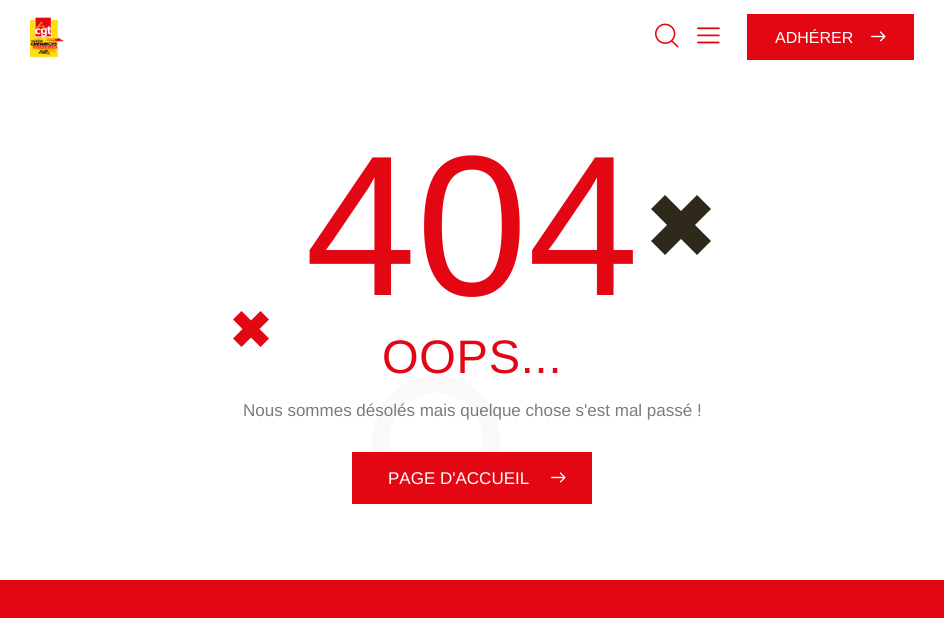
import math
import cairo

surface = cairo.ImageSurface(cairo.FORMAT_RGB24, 944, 618)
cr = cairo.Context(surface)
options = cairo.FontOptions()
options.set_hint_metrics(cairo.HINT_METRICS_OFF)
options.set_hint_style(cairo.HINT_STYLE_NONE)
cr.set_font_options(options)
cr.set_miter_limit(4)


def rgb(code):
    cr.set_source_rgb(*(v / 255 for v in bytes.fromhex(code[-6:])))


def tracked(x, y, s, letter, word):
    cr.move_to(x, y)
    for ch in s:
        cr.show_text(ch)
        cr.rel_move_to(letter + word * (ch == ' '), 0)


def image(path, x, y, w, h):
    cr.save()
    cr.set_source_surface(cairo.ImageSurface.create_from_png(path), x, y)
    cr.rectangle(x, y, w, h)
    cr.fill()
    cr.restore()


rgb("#ffffff")
cr.paint()
image("img/1.png", 30, 17, 34, 40)
image("img/2.png", 655, 23, 24, 25)
image("img/3.png", 697, 27, 23, 17)
rgb("#e30613")
cr.rectangle(747, 14, 167, 46)
cr.fill()
image("img/4.png", 871, 31, 15, 11)
rgb("#2f291b")
cr.new_path()
cr.move_to(651, 241)
cr.line_to(667, 225)
cr.line_to(651, 209)
cr.line_to(665, 195)
cr.line_to(681, 211)
cr.line_to(697, 195)
cr.line_to(711, 209)
cr.line_to(695, 225)
cr.line_to(711, 241)
cr.line_to(697, 255)
cr.line_to(681, 239)
cr.line_to(665, 255)
cr.close_path()
cr.fill()
rgb("#e30613")
cr.new_path()
cr.move_to(233, 338.5)
cr.line_to(242.5, 329)
cr.line_to(233, 319.5)
cr.line_to(241.5, 311)
cr.line_to(251, 320.5)
cr.line_to(260.5, 311)
cr.line_to(269, 319.5)
cr.line_to(259.5, 329)
cr.line_to(269, 338.5)
cr.line_to(260.5, 347)
cr.line_to(251, 337.5)
cr.line_to(241.5, 347)
cr.close_path()
cr.fill()
cr.arc(436, 439, 55, 0, 2 * math.pi)
rgb("#fbf9f8")
cr.set_line_width(17.3)
cr.stroke()
rgb("#e30613")
cr.rectangle(352, 452, 240, 52)
cr.fill()
image("img/4.png", 551, 472, 15, 11)
cr.rectangle(0, 580, 944, 38)
cr.fill()
cr.select_font_face("Liberation Sans")
cr.set_font_size(16)
rgb("#ffffff")
cr.move_to(775, 43)
cr.show_text("ADHÉRER")
cr.set_font_size(200)
rgb("#e30613")
cr.move_to(305, 295)
cr.show_text("404")
cr.set_font_size(47)
tracked(382, 373, "OOPS...", 0.75, 0)
cr.set_font_size(17)
rgb("#797c7f")
cr.move_to(243, 416)
cr.show_text("Nous sommes désolés mais quelque chose s'est mal passé !")
rgb("#ffffff")
cr.move_to(388, 484)
cr.show_text("PAGE D'ACCUEIL")
surface.write_to_png("page.png")
